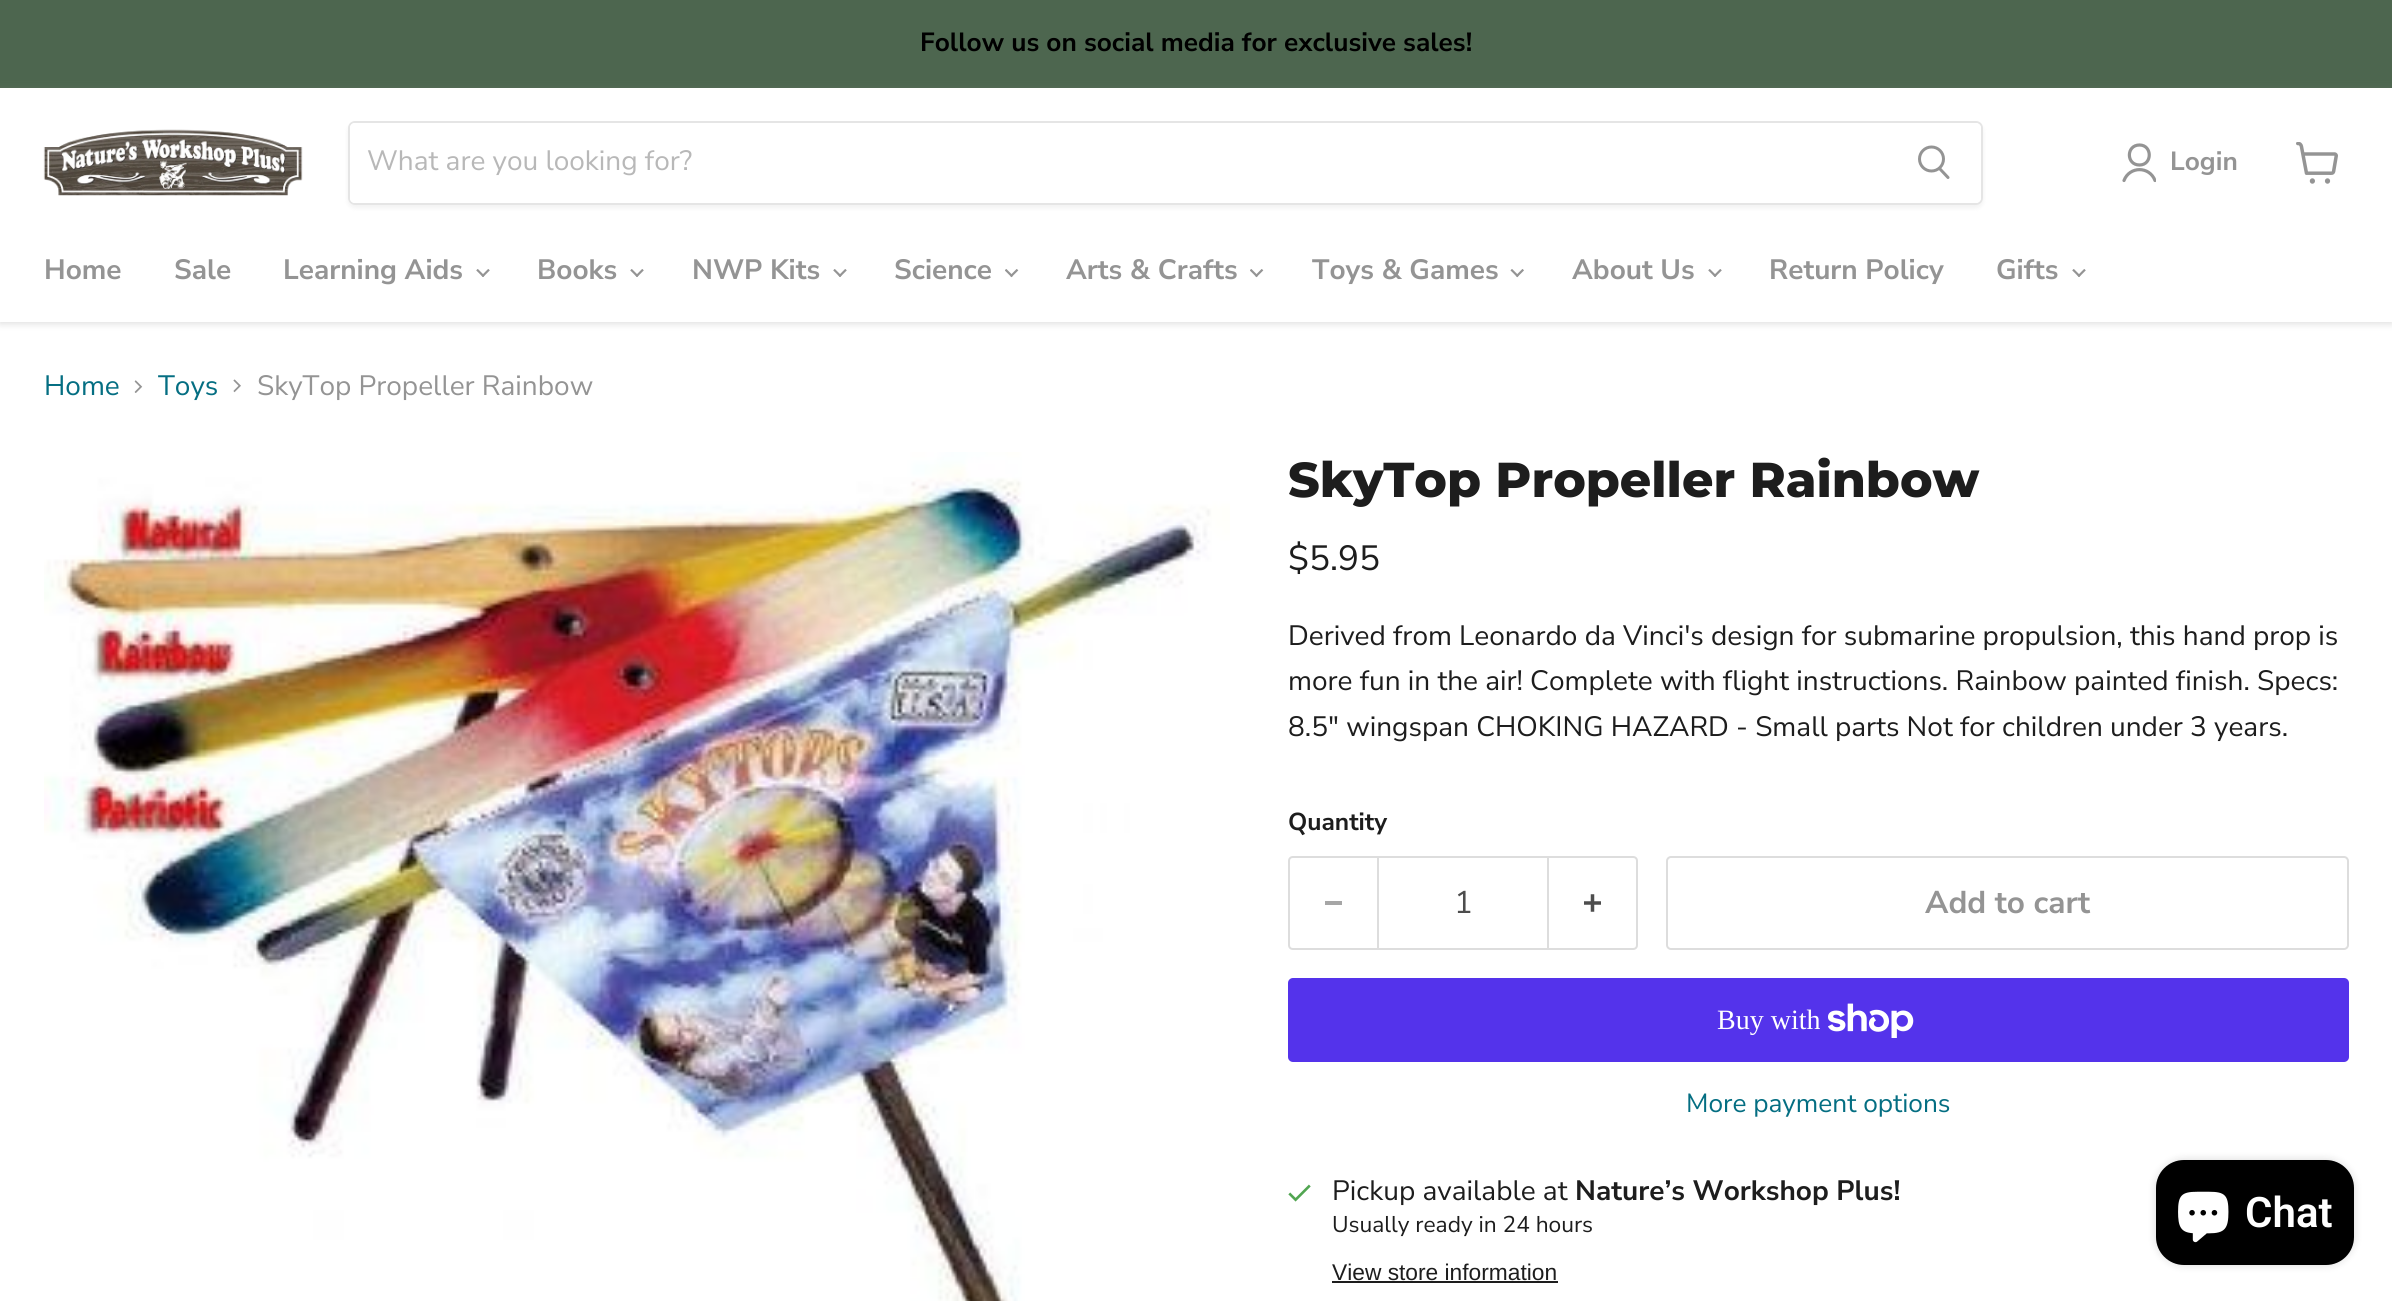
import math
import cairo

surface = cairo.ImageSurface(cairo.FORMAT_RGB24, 2392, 1301)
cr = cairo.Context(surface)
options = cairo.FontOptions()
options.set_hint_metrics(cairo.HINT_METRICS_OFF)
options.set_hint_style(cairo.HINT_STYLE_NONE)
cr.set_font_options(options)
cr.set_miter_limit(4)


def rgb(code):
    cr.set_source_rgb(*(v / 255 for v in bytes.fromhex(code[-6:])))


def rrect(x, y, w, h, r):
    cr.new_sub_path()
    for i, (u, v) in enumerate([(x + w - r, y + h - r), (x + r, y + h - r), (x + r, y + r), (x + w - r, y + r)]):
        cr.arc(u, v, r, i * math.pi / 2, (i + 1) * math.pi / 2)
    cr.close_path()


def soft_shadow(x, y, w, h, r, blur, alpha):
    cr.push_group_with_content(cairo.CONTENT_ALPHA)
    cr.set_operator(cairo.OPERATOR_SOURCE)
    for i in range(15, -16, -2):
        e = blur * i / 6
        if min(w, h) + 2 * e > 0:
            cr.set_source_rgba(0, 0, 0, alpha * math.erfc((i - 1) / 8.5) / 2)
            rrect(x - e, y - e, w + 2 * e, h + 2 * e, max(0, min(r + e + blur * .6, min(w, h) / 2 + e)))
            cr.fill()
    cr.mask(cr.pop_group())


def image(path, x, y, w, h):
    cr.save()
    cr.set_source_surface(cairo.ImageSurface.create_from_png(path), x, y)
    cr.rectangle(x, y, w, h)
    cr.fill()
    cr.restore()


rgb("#ffffff")
cr.paint()
rgb("#4d664f")
cr.rectangle(0, 0, 2392, 88)
cr.fill()
cr.save()
cr.set_fill_rule(cairo.FILL_RULE_EVEN_ODD)
cr.new_path()
cr.move_to(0, 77)
cr.line_to(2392, 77)
cr.line_to(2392, 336)
cr.line_to(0, 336)
cr.close_path()
cr.move_to(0, 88)
cr.line_to(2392, 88)
cr.line_to(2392, 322)
cr.line_to(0, 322)
cr.close_path()
cr.clip()
rgb("#808080")
soft_shadow(0, 89, 2392, 235, 0, 3.5, 0.25)
cr.restore()
image("img/1.png", 43, 129, 260, 67)
cr.save()
cr.set_fill_rule(cairo.FILL_RULE_EVEN_ODD)
cr.new_path()
cr.move_to(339, 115)
cr.line_to(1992, 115)
cr.line_to(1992, 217)
cr.line_to(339, 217)
cr.close_path()
cr.move_to(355, 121)
cr.line_to(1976, 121)
cr.curve_to(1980, 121, 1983, 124, 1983, 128)
cr.line_to(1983, 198)
cr.curve_to(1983, 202, 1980, 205, 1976, 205)
cr.line_to(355, 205)
cr.curve_to(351, 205, 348, 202, 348, 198)
cr.line_to(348, 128)
cr.curve_to(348, 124, 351, 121, 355, 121)
cr.close_path()
cr.clip()
rgb("#808080")
soft_shadow(348, 124, 1635, 84, 7, 2.5, 0.11)
cr.restore()
rrect(349, 122, 1633, 82, 6)
cr.set_source_rgba(0.502, 0.502, 0.502, 0.2)
cr.stroke()
rgb("#ffffff")
cr.new_path()
cr.move_to(355, 123)
cr.line_to(1887, 123)
cr.line_to(1887, 203)
cr.line_to(355, 203)
cr.curve_to(352, 203, 350, 201, 350, 198)
cr.line_to(350, 128)
cr.curve_to(350, 125, 352, 123, 355, 123)
cr.close_path()
cr.fill()
cr.new_path()
cr.move_to(1888, 124)
cr.line_to(1976, 124)
cr.curve_to(1978, 124, 1980, 126, 1980, 128)
cr.line_to(1980, 198)
cr.curve_to(1980, 200, 1978, 202, 1976, 202)
cr.line_to(1888, 202)
cr.close_path()
cr.fill_preserve()
cr.stroke()
cr.new_path()
cr.move_to(1948, 177.5)
cr.line_to(1940, 169)
rgb("#949494")
cr.set_line_width(3)
cr.set_line_cap(cairo.LINE_CAP_ROUND)
cr.stroke()
cr.arc(1931.5, 159, 12, 0, 2 * math.pi)
cr.set_line_cap(cairo.LINE_CAP_BUTT)
cr.stroke()
cr.new_path()
cr.move_to(2139.5, 165)
cr.curve_to(2152.5, 165, 2152.5, 145, 2139.5, 145)
cr.curve_to(2126, 145, 2126, 165, 2139.5, 165)
cr.close_path()
cr.set_line_width(3.2)
cr.set_line_cap(cairo.LINE_CAP_ROUND)
cr.set_line_join(cairo.LINE_JOIN_ROUND)
cr.stroke()
cr.save()
cr.rectangle(2121, 142, 35, 42)
cr.clip()
cr.new_path()
cr.move_to(2155, 180.5)
cr.curve_to(2149.5, 166, 2129.5, 166, 2124, 180.5)
cr.stroke()
cr.restore()
image("img/2.png", 2296, 142, 42, 42)
image("img/3.png", 476, 269, 14, 8)
image("img/3.png", 630, 269, 14, 8)
image("img/3.png", 833, 269, 14, 8)
image("img/4.png", 1005, 269, 14, 9)
image("img/4.png", 1250, 269, 14, 9)
image("img/5.png", 1510, 269, 14, 9)
image("img/3.png", 1708, 269, 14, 8)
image("img/3.png", 2072, 269, 14, 8)
image("img/6.png", 134, 380, 9, 13)
image("img/7.png", 233, 379, 8, 14)
image("img/8.png", 44, 452, 1186, 849)
rgb("#dddddd")
cr.set_fill_rule(cairo.FILL_RULE_EVEN_ODD)
cr.new_path()
cr.move_to(1293, 856)
cr.line_to(1377, 856)
cr.line_to(1377, 950)
cr.line_to(1293, 950)
cr.curve_to(1290, 950, 1288, 948, 1288, 945)
cr.line_to(1288, 861)
cr.curve_to(1288, 858, 1290, 856, 1293, 856)
cr.close_path()
cr.move_to(1293, 858)
cr.line_to(1377, 858)
cr.line_to(1377, 948)
cr.line_to(1293, 948)
cr.curve_to(1291, 948, 1290, 947, 1290, 945)
cr.line_to(1290, 861)
cr.curve_to(1290, 859, 1291, 858, 1293, 858)
cr.close_path()
cr.fill()
rgb("#a6a6a6")
cr.rectangle(1325, 901, 17, 4)
cr.fill()
cr.rectangle(1378, 857, 170, 92)
rgb("#dddddd")
cr.set_line_width(2)
cr.set_line_cap(cairo.LINE_CAP_BUTT)
cr.set_line_join(cairo.LINE_JOIN_MITER)
cr.stroke()
cr.new_path()
cr.move_to(1549, 856)
cr.line_to(1633, 856)
cr.curve_to(1636, 856, 1638, 858, 1638, 861)
cr.line_to(1638, 945)
cr.curve_to(1638, 948, 1636, 950, 1633, 950)
cr.line_to(1549, 950)
cr.close_path()
cr.move_to(1549, 858)
cr.line_to(1633, 858)
cr.curve_to(1635, 858, 1636, 859, 1636, 861)
cr.line_to(1636, 945)
cr.curve_to(1636, 947, 1635, 948, 1633, 948)
cr.line_to(1549, 948)
cr.close_path()
cr.fill()
image("img/9.png", 1584, 894, 17, 18)
rrect(1667, 857, 681, 92, 4)
cr.stroke()
rgb("#5433eb")
rrect(1288, 978, 1061, 84, 5)
cr.fill()
image("img/10.png", 1828, 1003, 86, 35)
image("img/11.png", 1288, 1184, 23, 18)
rgb("#1d1d1d")
cr.rectangle(1332, 1281, 226, 2)
cr.fill()
rgb("#000000")
soft_shadow(2156, 1160, 198, 105, 28, 4.5, 0.15)
rgb("#000000")
rrect(2156, 1160, 198, 105, 28)
cr.fill()
image("img/12.png", 2178, 1191, 51, 52)
cr.select_font_face("Nunito Sans", cairo.FONT_SLANT_NORMAL, cairo.FONT_WEIGHT_BOLD)
cr.set_font_size(26.25)
cr.move_to(920, 51)
cr.show_text("Follow us on social media for exclusive sales!")
cr.select_font_face("Nunito Sans")
cr.set_font_size(28)
rgb("#b8b8b8")
cr.move_to(367, 170)
cr.show_text("What are you looking for?")
cr.select_font_face("Nunito Sans", cairo.FONT_SLANT_NORMAL, cairo.FONT_WEIGHT_BOLD)
cr.set_font_size(26.25)
rgb("#949494")
cr.move_to(2170, 170)
cr.show_text("Login")
cr.set_font_size(28)
for x, y, s in [
    (44, 279, "Home"),
    (174, 279, "Sale"),
    (283, 279, "Learning Aids"),
    (537, 279, "Books"),
    (692, 279, "NWP Kits"),
    (894, 279, "Science"),
    (1066, 279, "Arts & Crafts"),
    (1312, 279, "Toys & Games"),
    (1572, 279, "About Us"),
    (1769, 279, "Return Policy"),
    (1996, 279, "Gifts"),
]:
    cr.move_to(x, y)
    cr.show_text(s)
cr.select_font_face("Nunito Sans")
rgb("#046e82")
cr.move_to(44, 395)
cr.show_text("Home")
cr.move_to(158, 395)
cr.show_text("Toys")
rgb("#949494")
cr.move_to(257, 395)
cr.show_text("SkyTop Propeller Rainbow")
cr.select_font_face("Montserrat ExtraBold")
cr.set_font_size(49)
rgb("#1d1d1d")
cr.move_to(1288, 497)
cr.show_text("SkyTop Propeller Rainbow")
cr.select_font_face("Nunito Sans")
cr.set_font_size(35)
cr.move_to(1288, 570)
cr.show_text("$5.95")
cr.set_font_size(28)
for x, y, s in [
    (1288, 645, "Derived from Leonardo da Vinci's design for submarine propulsion, this hand prop is"),
    (1288, 690, "more fun in the air! Complete with flight instructions. Rainbow painted finish. Specs:"),
    (1288, 736, "8.5\" wingspan CHOKING HAZARD - Small parts Not for children under 3 years."),
]:
    cr.move_to(x, y)
    cr.show_text(s)
cr.select_font_face("Nunito Sans", cairo.FONT_SLANT_NORMAL, cairo.FONT_WEIGHT_BOLD)
cr.set_font_size(24.5)
cr.move_to(1288, 830)
cr.show_text("Quantity")
cr.select_font_face("Nunito Sans")
cr.set_font_size(31.5)
rgb("#4d4d4d")
cr.move_to(1454, 913)
cr.show_text("1")
cr.select_font_face("Nunito Sans", cairo.FONT_SLANT_NORMAL, cairo.FONT_WEIGHT_BOLD)
rgb("#949494")
cr.move_to(1925, 913)
cr.show_text("Add to cart")
cr.select_font_face("Liberation Serif")
cr.set_font_size(28)
rgb("#ffffff")
cr.move_to(1717, 1029)
cr.show_text("Buy with")
cr.select_font_face("Nunito Sans")
cr.set_font_size(26.25)
rgb("#046e82")
cr.move_to(1686, 1112)
cr.show_text("More payment options")
cr.set_font_size(28)
rgb("#1d1d1d")
cr.move_to(1332, 1200)
cr.show_text("Pickup available at")
cr.select_font_face("Nunito Sans", cairo.FONT_SLANT_NORMAL, cairo.FONT_WEIGHT_BOLD)
cr.move_to(1575, 1200)
cr.show_text("Nature’s Workshop Plus!")
cr.select_font_face("Nunito Sans")
cr.set_font_size(22.75)
cr.move_to(1332, 1232)
cr.show_text("Usually ready in 24 hours")
cr.select_font_face("Liberation Sans")
cr.move_to(1332, 1280)
cr.show_text("View store information")
cr.select_font_face("Roboto SemiBold")
cr.set_font_size(42)
rgb("#ffffff")
cr.move_to(2245, 1227)
cr.show_text("Chat")
surface.write_to_png("page.png")
